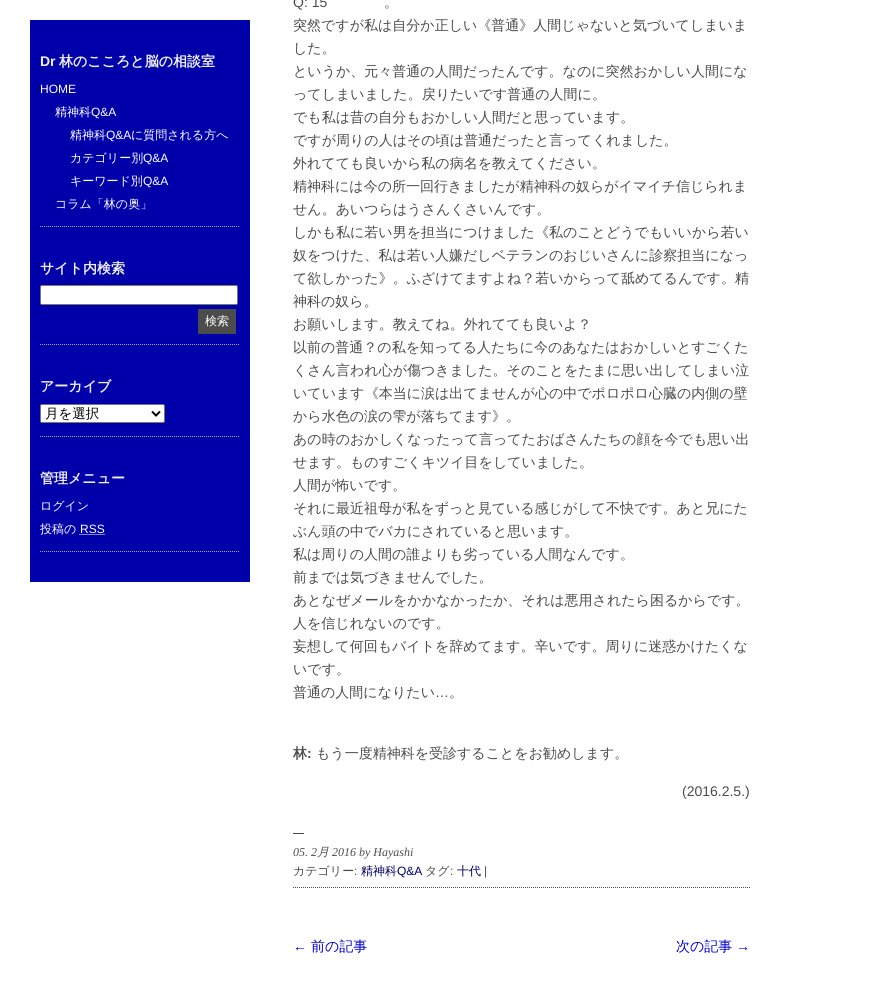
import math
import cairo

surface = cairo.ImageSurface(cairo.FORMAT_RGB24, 872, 990)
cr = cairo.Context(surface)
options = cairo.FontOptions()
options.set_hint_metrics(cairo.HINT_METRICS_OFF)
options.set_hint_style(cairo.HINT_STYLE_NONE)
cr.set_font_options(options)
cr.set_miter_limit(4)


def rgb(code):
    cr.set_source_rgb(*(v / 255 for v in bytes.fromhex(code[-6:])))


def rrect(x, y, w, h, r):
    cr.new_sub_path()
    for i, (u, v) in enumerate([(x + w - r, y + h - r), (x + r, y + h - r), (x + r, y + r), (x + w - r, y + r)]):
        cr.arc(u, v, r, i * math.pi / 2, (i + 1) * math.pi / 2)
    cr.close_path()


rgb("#ffffff")
cr.paint()
rgb("#0000aa")
cr.rectangle(30, 20, 220, 562)
cr.fill()
cr.new_path()
cr.move_to(40, 226.5)
cr.line_to(240, 226.5)
rgb("#aaaaaa")
cr.set_line_width(1)
cr.set_dash([1, 1])
cr.stroke()
cr.new_path()
cr.move_to(40, 344.5)
cr.line_to(240, 344.5)
cr.stroke()
rgb("#ffffff")
rrect(40.5, 285.5, 197, 19, 1.5)
cr.fill_preserve()
rgb("#767676")
cr.set_dash([])
cr.stroke()
rgb("#4c4c4c")
cr.rectangle(198, 309, 38, 25)
cr.fill()
cr.new_path()
cr.move_to(40, 436.5)
cr.line_to(240, 436.5)
rgb("#aaaaaa")
cr.set_dash([1, 1])
cr.stroke()
rgb("#ffffff")
rrect(40.5, 404.5, 124, 18, 1.5)
cr.fill_preserve()
rgb("#767676")
cr.set_dash([])
cr.stroke()
cr.new_path()
cr.move_to(152, 411.5)
cr.line_to(156, 415.5)
cr.line_to(160, 411.5)
rgb("#000000")
cr.set_line_width(2)
cr.stroke()
cr.new_path()
cr.move_to(40, 551.5)
cr.line_to(240, 551.5)
rgb("#aaaaaa")
cr.set_line_width(1)
cr.set_dash([1, 1])
cr.stroke()
cr.new_path()
cr.move_to(79.5, 534.5)
cr.line_to(104.5, 534.5)
rgb("#ffffff")
cr.stroke()
cr.new_path()
cr.move_to(293, 887.5)
cr.line_to(750, 887.5)
rgb("#4c4c4c")
cr.stroke()
cr.rectangle(293, 833, 11, 1)
cr.fill()
cr.select_font_face("Liberation Sans", cairo.FONT_SLANT_NORMAL, cairo.FONT_WEIGHT_BOLD)
cr.set_font_size(14)
rgb("#f0f0f0")
cr.move_to(40, 66)
cr.show_text("Dr")
cr.select_font_face("WenQuanYi Zen Hei", cairo.FONT_SLANT_NORMAL, cairo.FONT_WEIGHT_BOLD)
cr.move_to(59, 66)
cr.show_text("林のこころと脳の相談室")
cr.select_font_face("Liberation Sans")
cr.set_font_size(12)
rgb("#ffffff")
cr.move_to(40, 93)
cr.show_text("HOME")
cr.select_font_face("WenQuanYi Zen Hei Medium")
cr.move_to(55, 116)
cr.show_text("精神科")
cr.select_font_face("Liberation Sans")
cr.move_to(91, 116)
cr.show_text("Q&A")
cr.select_font_face("WenQuanYi Zen Hei Medium")
cr.move_to(70, 139)
cr.show_text("精神科")
cr.select_font_face("Liberation Sans")
cr.move_to(106, 139)
cr.show_text("Q&A")
cr.select_font_face("WenQuanYi Zen Hei Medium")
cr.move_to(131, 139)
cr.show_text("に質問される方へ")
cr.move_to(70, 162)
cr.show_text("カテゴリー別")
cr.select_font_face("Liberation Sans")
cr.move_to(143, 162)
cr.show_text("Q&A")
cr.select_font_face("WenQuanYi Zen Hei Medium")
cr.move_to(70, 185)
cr.show_text("キーワード別")
cr.select_font_face("Liberation Sans")
cr.move_to(143, 185)
cr.show_text("Q&A")
cr.select_font_face("WenQuanYi Zen Hei Medium")
cr.move_to(55, 208)
cr.show_text("コラム「林の奥」")
cr.select_font_face("WenQuanYi Zen Hei", cairo.FONT_SLANT_NORMAL, cairo.FONT_WEIGHT_BOLD)
cr.set_font_size(14)
rgb("#f0f0f0")
cr.move_to(40, 273)
cr.show_text("サイト内検索")
cr.select_font_face("WenQuanYi Zen Hei Medium")
cr.set_font_size(12)
rgb("#ffffff")
cr.move_to(205, 325)
cr.show_text("検索")
cr.select_font_face("WenQuanYi Zen Hei", cairo.FONT_SLANT_NORMAL, cairo.FONT_WEIGHT_BOLD)
cr.set_font_size(14)
rgb("#f0f0f0")
cr.move_to(40, 391)
cr.show_text("アーカイブ")
cr.select_font_face("WenQuanYi Zen Hei Medium")
cr.set_font_size(13.5)
rgb("#000000")
cr.move_to(45, 418)
cr.show_text("月を選択")
cr.select_font_face("WenQuanYi Zen Hei", cairo.FONT_SLANT_NORMAL, cairo.FONT_WEIGHT_BOLD)
cr.set_font_size(14)
rgb("#f0f0f0")
cr.move_to(40, 483)
cr.show_text("管理メニュー")
cr.select_font_face("WenQuanYi Zen Hei Medium")
cr.set_font_size(12)
rgb("#ffffff")
cr.move_to(40, 510)
cr.show_text("ログイン")
cr.move_to(40, 533)
cr.show_text("投稿の")
cr.select_font_face("Liberation Sans")
cr.move_to(80, 533)
cr.show_text("RSS")
cr.set_font_size(14)
rgb("#4c4c4c")
cr.move_to(293, 7)
cr.show_text("Q: 15")
cr.select_font_face("WenQuanYi Zen Hei Medium")
for x, y, s in [
    (384, 7, "。"),
    (293, 30, "突然ですが私は自分か正しい《普通》人間じゃないと気づいてしまいま"),
    (293, 53, "した。"),
    (293, 76, "というか、元々普通の人間だったんです。なのに突然おかしい人間にな"),
    (293, 99, "ってしまいました。戻りたいです普通の人間に。"),
    (293, 122, "でも私は昔の自分もおかしい人間だと思っています。"),
    (293, 145, "ですが周りの人はその頃は普通だったと言ってくれました。"),
    (293, 168, "外れてても良いから私の病名を教えてください。"),
    (293, 191, "精神科には今の所一回行きましたが精神科の奴らがイマイチ信じられま"),
    (293, 214, "せん。あいつらはうさんくさいんです。"),
    (293, 237, "しかも私に若い男を担当につけました《私のことどうでもいいから若い"),
    (293, 260, "奴をつけた、私は若い人嫌だしベテランのおじいさんに診察担当になっ"),
    (293, 283, "て欲しかった》。ふざけてますよね？若いからって舐めてるんです。精"),
    (293, 306, "神科の奴ら。"),
    (293, 329, "お願いします。教えてね。外れてても良いよ？"),
    (293, 352, "以前の普通？の私を知ってる人たちに今のあなたはおかしいとすごくた"),
    (293, 375, "くさん言われ心が傷つきました。そのことをたまに思い出してしまい泣"),
    (293, 398, "いています《本当に涙は出てませんが心の中でポロポロ心臓の内側の壁"),
    (293, 421, "から水色の涙の雫が落ちてます》。"),
    (293, 444, "あの時のおかしくなったって言ってたおばさんたちの顔を今でも思い出"),
    (293, 467, "せます。ものすごくキツイ目をしていました。"),
    (293, 490, "人間が怖いです。"),
    (293, 513, "それに最近祖母が私をずっと見ている感じがして不快です。あと兄にた"),
    (293, 536, "ぶん頭の中でバカにされていると思います。"),
    (293, 559, "私は周りの人間の誰よりも劣っている人間なんです。"),
    (293, 582, "前までは気づきませんでした。"),
    (293, 605, "あとなぜメールをかかなかったか、それは悪用されたら困るからです。"),
    (293, 628, "人を信じれないのです。"),
    (293, 651, "妄想して何回もバイトを辞めてます。辛いです。周りに迷惑かけたくな"),
    (293, 674, "いです。"),
    (293, 697, "普通の人間になりたい"),
]:
    cr.move_to(x, y)
    cr.show_text(s)
cr.select_font_face("Liberation Sans")
cr.move_to(435, 697)
cr.show_text("…")
cr.select_font_face("WenQuanYi Zen Hei Medium")
cr.move_to(449, 697)
cr.show_text("。")
cr.select_font_face("WenQuanYi Zen Hei", cairo.FONT_SLANT_NORMAL, cairo.FONT_WEIGHT_BOLD)
cr.move_to(293, 758)
cr.show_text("林")
cr.select_font_face("Liberation Sans", cairo.FONT_SLANT_NORMAL, cairo.FONT_WEIGHT_BOLD)
cr.move_to(307, 758)
cr.show_text(":")
cr.select_font_face("WenQuanYi Zen Hei Medium")
cr.move_to(316, 758)
cr.show_text("もう一度精神科を受診することをお勧めします。")
cr.select_font_face("Liberation Sans")
cr.move_to(682, 796)
cr.show_text("(2016.2.5.)")
cr.select_font_face("Liberation Serif", cairo.FONT_SLANT_ITALIC)
cr.set_font_size(12)
cr.move_to(293, 856)
cr.show_text("05. 2")
cr.select_font_face("WenQuanYi Zen Hei Medium", cairo.FONT_SLANT_ITALIC)
cr.move_to(317, 856)
cr.show_text("月")
cr.select_font_face("Liberation Serif", cairo.FONT_SLANT_ITALIC)
cr.move_to(332, 856)
cr.show_text("2016 by Hayashi")
cr.select_font_face("WenQuanYi Zen Hei Medium")
cr.move_to(293, 875)
cr.show_text("カテゴリー")
cr.select_font_face("Liberation Sans")
cr.move_to(354, 875)
cr.show_text(":")
cr.select_font_face("WenQuanYi Zen Hei Medium")
rgb("#000066")
cr.move_to(361, 875)
cr.show_text("精神科")
cr.select_font_face("Liberation Sans")
cr.move_to(397, 875)
cr.show_text("Q&A")
cr.select_font_face("WenQuanYi Zen Hei Medium")
rgb("#4c4c4c")
cr.move_to(425, 875)
cr.show_text("タグ")
cr.select_font_face("Liberation Sans")
cr.move_to(450, 875)
cr.show_text(":")
cr.select_font_face("WenQuanYi Zen Hei Medium")
rgb("#000066")
cr.move_to(457, 875)
cr.show_text("十代")
cr.select_font_face("Liberation Sans")
rgb("#4c4c4c")
cr.move_to(484, 875)
cr.show_text("|")
cr.set_font_size(14)
rgb("#0000cc")
cr.move_to(293, 951)
cr.show_text("←")
cr.select_font_face("WenQuanYi Zen Hei Medium")
cr.move_to(311, 951)
cr.show_text("前の記事")
cr.move_to(676, 951)
cr.show_text("次の記事")
cr.select_font_face("Liberation Sans")
cr.move_to(736, 951)
cr.show_text("→")
surface.write_to_png("page.png")
